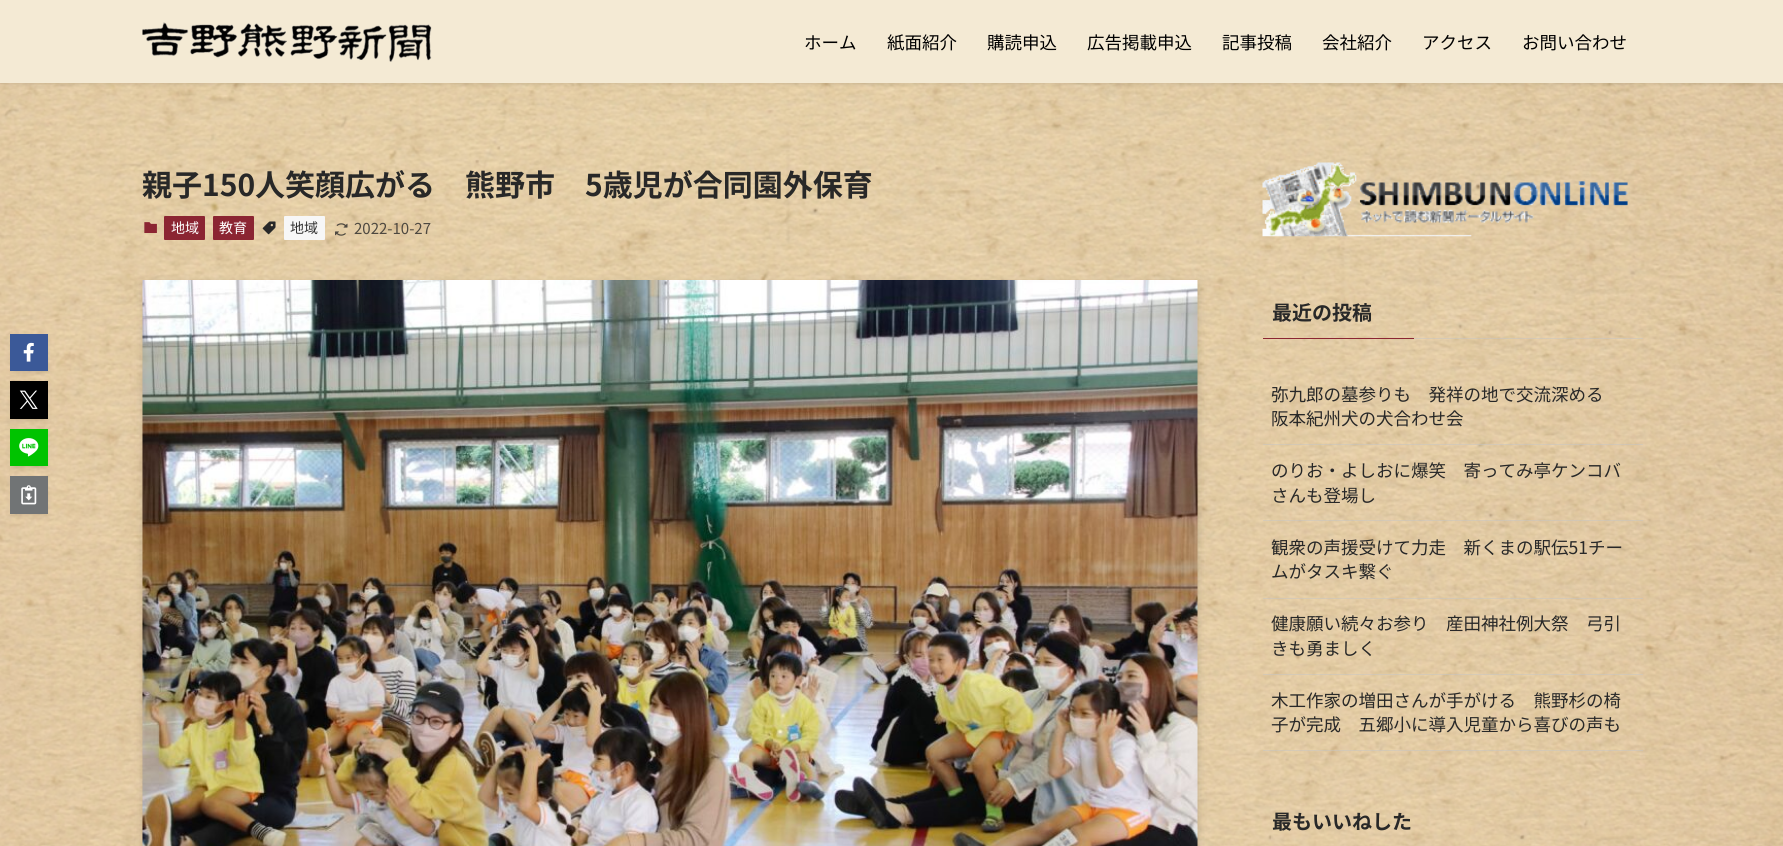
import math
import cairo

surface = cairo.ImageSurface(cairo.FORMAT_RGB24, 1783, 846)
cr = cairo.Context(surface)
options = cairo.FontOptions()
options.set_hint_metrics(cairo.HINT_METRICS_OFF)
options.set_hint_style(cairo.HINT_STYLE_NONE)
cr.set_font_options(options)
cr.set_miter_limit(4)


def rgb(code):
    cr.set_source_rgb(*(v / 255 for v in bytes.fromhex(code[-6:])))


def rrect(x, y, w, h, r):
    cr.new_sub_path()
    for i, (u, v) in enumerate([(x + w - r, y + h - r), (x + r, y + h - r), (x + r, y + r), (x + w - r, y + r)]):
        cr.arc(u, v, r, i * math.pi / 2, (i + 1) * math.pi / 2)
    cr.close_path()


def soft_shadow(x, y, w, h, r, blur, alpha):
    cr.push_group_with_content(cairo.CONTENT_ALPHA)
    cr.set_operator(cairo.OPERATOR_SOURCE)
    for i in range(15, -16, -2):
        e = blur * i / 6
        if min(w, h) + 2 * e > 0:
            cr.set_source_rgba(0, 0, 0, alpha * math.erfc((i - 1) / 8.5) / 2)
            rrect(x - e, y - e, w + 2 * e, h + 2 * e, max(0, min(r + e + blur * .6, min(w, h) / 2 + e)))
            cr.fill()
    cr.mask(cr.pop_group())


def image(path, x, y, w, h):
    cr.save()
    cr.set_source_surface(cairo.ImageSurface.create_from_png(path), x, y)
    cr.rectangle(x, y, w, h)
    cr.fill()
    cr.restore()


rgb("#ffffff")
cr.paint()
image("img/2.png", 0, 83, 1783, 763)
rgb("#000000")
soft_shadow(0, 1, 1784, 83, 0, 2.5, 0.12)
rgb("#f4ead4")
cr.rectangle(0, 0, 1783, 83)
cr.fill()
image("img/1.png", 142, 22, 290, 40)
image("img/3.png", 144, 222, 13, 11)
rgb("#8b2532")
rrect(164, 216, 41, 24, 1)
cr.fill()
rrect(213, 216, 41, 24, 1)
cr.fill()
image("img/4.png", 262, 221, 14, 14)
rgb("#f7f7f7")
rrect(284, 216, 41, 24, 1)
cr.fill()
image("img/5.png", 335, 223, 13, 13)
rgb("#000000")
soft_shadow(15, 344, 28, 27, 0, 2.5, 0.1)
soft_shadow(10, 336, 38, 38, 0, 2.5, 0.05)
rgb("#3b5998")
cr.rectangle(10, 334, 38, 37)
cr.fill()
image("img/6.png", 23, 342, 11, 20)
rgb("#000000")
soft_shadow(15, 391, 28, 28, 0, 2.5, 0.1)
soft_shadow(10, 384, 38, 37, 0, 2.5, 0.05)
rgb("#000000")
cr.rectangle(10, 381, 38, 38)
cr.fill()
image("img/7.png", 19, 390, 19, 19)
rgb("#000000")
soft_shadow(15, 439, 28, 27, 0, 2.5, 0.1)
soft_shadow(10, 431, 38, 38, 0, 2.5, 0.05)
rgb("#00c300")
cr.rectangle(10, 429, 38, 37)
cr.fill()
image("img/8.png", 19, 438, 20, 19)
rgb("#000000")
soft_shadow(15, 486, 28, 28, 0, 2.5, 0.1)
soft_shadow(10, 479, 38, 37, 0, 2.5, 0.05)
rgb("#717475")
cr.rectangle(10, 476, 38, 38)
cr.fill()
image("img/9.png", 21, 485, 16, 20)
rgb("#000000")
soft_shadow(148, 290, 1045, 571, 0, 5, 0.2)
soft_shadow(143, 283, 1055, 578, 0, 5, 0.1)
image("img/10.png", 142, 280, 1056, 566)
image("img/11.png", 1262, 162, 366, 75)
rgb("#8b2532")
cr.rectangle(1263, 338, 151, 1)
cr.fill()
cr.set_source_rgba(0.78, 0.78, 0.78, 0.5)
cr.rectangle(1414, 338, 229, 1)
cr.fill()
cr.rectangle(1263, 444, 380, 1)
cr.fill()
cr.rectangle(1263, 520, 380, 1)
cr.fill()
cr.rectangle(1263, 598, 380, 1)
cr.fill()
cr.rectangle(1263, 674, 380, 1)
cr.fill()
cr.rectangle(1263, 750, 380, 1)
cr.fill()
cr.select_font_face("Noto Sans JP")
cr.set_font_size(17.5)
rgb("#000000")
for x, y, s in [
    (804, 49, "ホーム"),
    (887, 49, "紙面紹介"),
    (987, 49, "購読申込"),
    (1087, 49, "広告掲載申込"),
    (1222, 49, "記事投稿"),
    (1322, 49, "会社紹介"),
    (1422, 49, "アクセス"),
    (1522, 49, "お問い合わせ"),
]:
    cr.move_to(x, y)
    cr.show_text(s)
cr.select_font_face("Noto Sans JP", cairo.FONT_SLANT_NORMAL, cairo.FONT_WEIGHT_BOLD)
cr.set_font_size(30)
rgb("#282828")
cr.move_to(142, 196)
cr.show_text("親子150人笑顔広がる　熊野市　5歳児が合同園外保育")
cr.select_font_face("Noto Sans JP")
cr.set_font_size(14)
rgb("#ffffff")
cr.move_to(171, 233)
cr.show_text("地域")
cr.move_to(219, 233)
cr.show_text("教育")
rgb("#333333")
cr.move_to(290, 233)
cr.show_text("地域")
cr.set_font_size(15)
rgb("#4d4840")
cr.move_to(354, 234)
cr.show_text("2022-10-27")
cr.select_font_face("Noto Sans JP", cairo.FONT_SLANT_NORMAL, cairo.FONT_WEIGHT_BOLD)
cr.set_font_size(20)
rgb("#282828")
cr.move_to(1272, 320)
cr.show_text("最近の投稿")
cr.select_font_face("Noto Sans JP")
cr.set_font_size(17.5)
for x, y, s in [
    (1271, 401, "弥九郎の墓参りも　発祥の地で交流深める"),
    (1271, 425, "阪本紀州犬の犬合わせ会"),
    (1271, 477, "のりお・よしおに爆笑　寄ってみ亭ケンコバ"),
    (1271, 502, "さんも登場し"),
    (1271, 554, "観衆の声援受けて力走　新くまの駅伝51チー"),
    (1271, 578, "ムがタスキ繋ぐ"),
    (1271, 630, "健康願い続々お参り　産田神社例大祭　弓引"),
    (1271, 655, "きも勇ましく"),
    (1271, 707, "木工作家の増田さんが手がける　熊野杉の椅"),
    (1271, 731, "子が完成　五郷小に導入児童から喜びの声も"),
]:
    cr.move_to(x, y)
    cr.show_text(s)
cr.select_font_face("Noto Sans JP", cairo.FONT_SLANT_NORMAL, cairo.FONT_WEIGHT_BOLD)
cr.set_font_size(20)
cr.move_to(1272, 829)
cr.show_text("最もいいねした")
surface.write_to_png("page.png")
